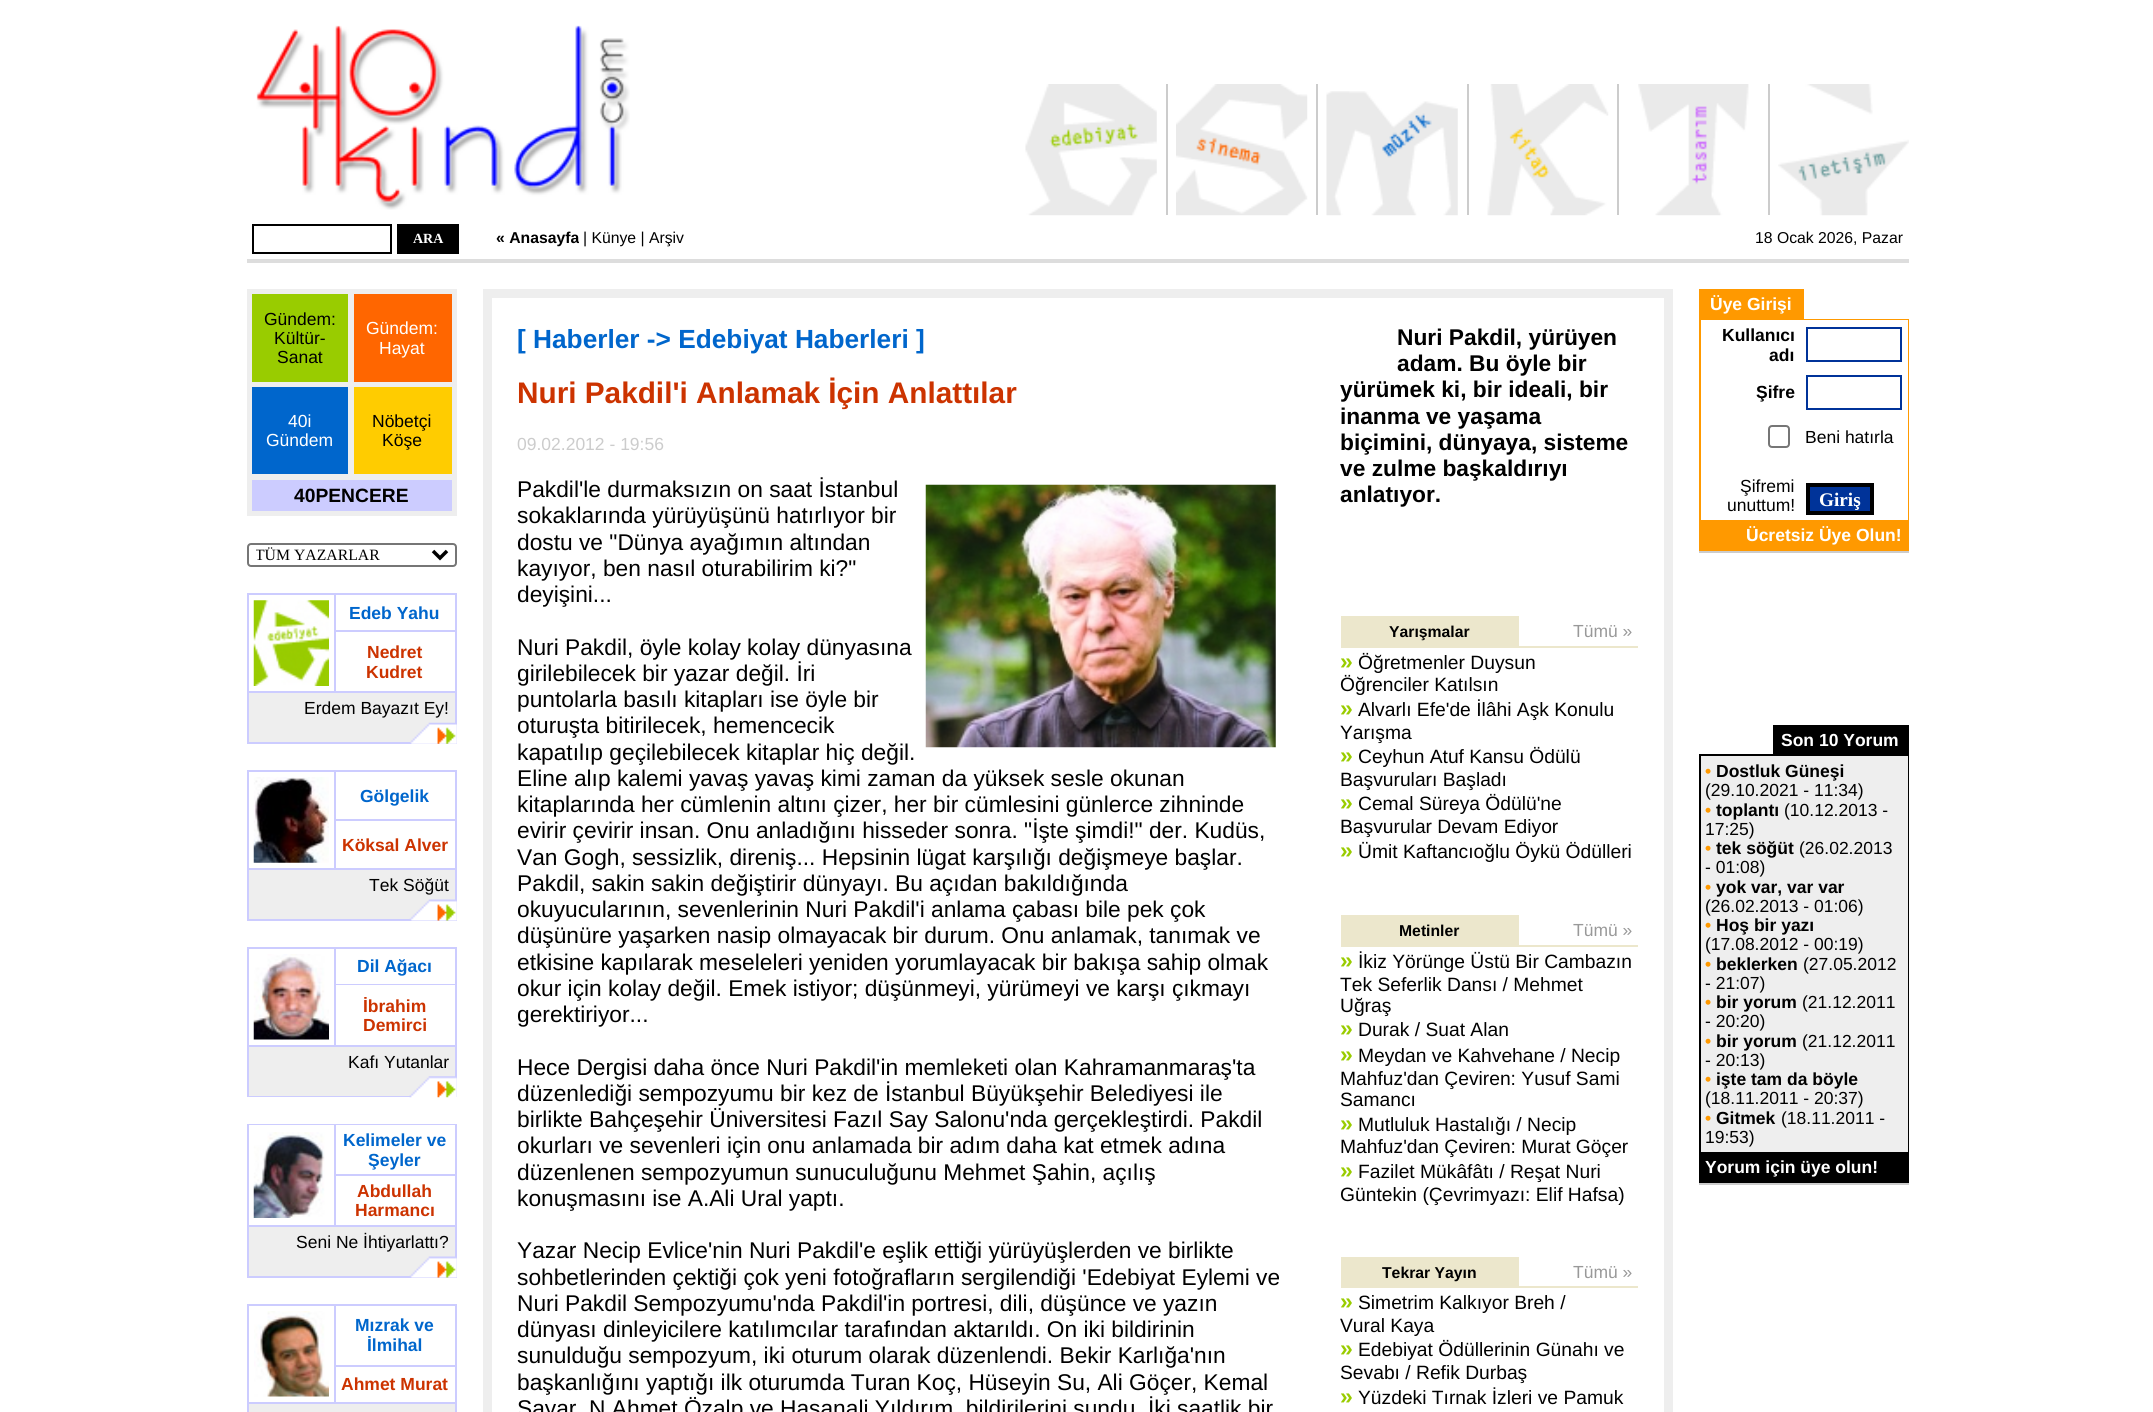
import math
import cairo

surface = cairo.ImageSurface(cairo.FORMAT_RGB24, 2153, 1412)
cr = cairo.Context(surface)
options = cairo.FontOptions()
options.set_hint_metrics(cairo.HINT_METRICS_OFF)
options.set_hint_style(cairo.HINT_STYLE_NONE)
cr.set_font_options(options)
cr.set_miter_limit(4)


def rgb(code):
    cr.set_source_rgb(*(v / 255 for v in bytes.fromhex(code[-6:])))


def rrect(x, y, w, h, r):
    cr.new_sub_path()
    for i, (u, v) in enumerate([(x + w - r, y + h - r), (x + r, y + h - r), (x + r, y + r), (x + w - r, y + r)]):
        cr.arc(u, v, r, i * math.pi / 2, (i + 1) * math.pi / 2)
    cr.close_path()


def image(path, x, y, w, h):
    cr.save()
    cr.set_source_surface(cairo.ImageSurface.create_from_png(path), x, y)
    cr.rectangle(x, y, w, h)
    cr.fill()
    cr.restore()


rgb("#ffffff")
cr.paint()
image("img/1.png", 256, 25, 374, 185)
image("img/2.png", 1025, 84, 132, 132)
rgb("#cccccc")
cr.rectangle(1166, 84, 2, 131)
cr.fill()
image("img/3.png", 1176, 84, 132, 132)
cr.rectangle(1316, 84, 2, 131)
cr.fill()
image("img/4.png", 1326, 91, 132, 125)
cr.rectangle(1467, 84, 2, 131)
cr.fill()
image("img/5.png", 1487, 84, 122, 132)
cr.rectangle(1617, 84, 2, 131)
cr.fill()
image("img/6.png", 1638, 84, 111, 132)
cr.rectangle(1768, 84, 2, 131)
cr.fill()
image("img/7.png", 1778, 84, 131, 132)
rgb("#dddddd")
cr.rectangle(247, 259, 1662, 4)
cr.fill()
cr.rectangle(253, 225, 138, 28)
rgb("#000000")
cr.stroke()
for x, y, w, h, color in [
    (397, 224, 62, 30, "#000000"),
    (247, 289, 210, 227, "#eeeeee"),
    (252, 294, 96, 88, "#99cc00"),
    (354, 294, 98, 88, "#ff6600"),
    (252, 387, 96, 87, "#0066cc"),
    (354, 387, 98, 87, "#ffcc00"),
    (252, 480, 200, 31, "#ccccff"),
]:
    rgb(color)
    cr.rectangle(x, y, w, h)
    cr.fill()
rrect(248, 544, 208, 22, 3)
rgb("#767676")
cr.stroke()
cr.new_path()
cr.move_to(433, 551)
cr.line_to(440, 558)
cr.line_to(447, 551)
rgb("#000000")
cr.set_line_width(3.5)
cr.stroke()
rgb("#ccccff")
cr.rectangle(247, 593, 210, 151)
cr.fill()
rgb("#ffffff")
cr.rectangle(249, 595, 85, 96)
cr.fill()
image("img/8.png", 253, 600, 76, 86)
for x, y, w, h, color in [
    (336, 595, 119, 35, "#ffffff"),
    (336, 632, 119, 59, "#ffffff"),
    (249, 693, 206, 49, "#eeeeee"),
]:
    rgb(color)
    cr.rectangle(x, y, w, h)
    cr.fill()
image("img/9.png", 410, 722, 47, 22)
rgb("#ccccff")
cr.rectangle(247, 770, 210, 151)
cr.fill()
rgb("#ffffff")
cr.rectangle(249, 772, 85, 96)
cr.fill()
image("img/10.png", 253, 777, 76, 86)
for x, y, w, h, color in [
    (336, 772, 119, 47, "#ffffff"),
    (336, 821, 119, 47, "#ffffff"),
    (249, 870, 206, 49, "#eeeeee"),
]:
    rgb(color)
    cr.rectangle(x, y, w, h)
    cr.fill()
image("img/11.png", 409, 899, 48, 22)
rgb("#ccccff")
cr.rectangle(247, 947, 210, 150)
cr.fill()
rgb("#ffffff")
cr.rectangle(249, 949, 85, 96)
cr.fill()
image("img/12.png", 253, 954, 76, 86)
for x, y, w, h, color in [
    (336, 949, 119, 35, "#ffffff"),
    (336, 985, 119, 60, "#ffffff"),
    (249, 1047, 206, 49, "#eeeeee"),
]:
    rgb(color)
    cr.rectangle(x, y, w, h)
    cr.fill()
image("img/13.png", 409, 1076, 48, 22)
rgb("#ccccff")
cr.rectangle(247, 1124, 210, 154)
cr.fill()
rgb("#ffffff")
cr.rectangle(249, 1125, 85, 100)
cr.fill()
image("img/14.png", 253, 1132, 72, 86)
for x, y, w, h, color in [
    (336, 1125, 119, 49, "#ffffff"),
    (336, 1176, 119, 49, "#ffffff"),
    (249, 1227, 206, 49, "#eeeeee"),
]:
    rgb(color)
    cr.rectangle(x, y, w, h)
    cr.fill()
image("img/11.png", 409, 1256, 48, 22)
rgb("#ccccff")
cr.rectangle(247, 1304, 210, 108)
cr.fill()
rgb("#ffffff")
cr.rectangle(249, 1306, 85, 96)
cr.fill()
image("img/15.png", 254, 1311, 75, 86)
for x, y, w, h, color in [
    (336, 1306, 119, 59, "#ffffff"),
    (336, 1367, 119, 35, "#ffffff"),
    (249, 1404, 206, 8, "#eeeeee"),
    (483, 289, 1190, 1123, "#eeeeee"),
    (492, 298, 1172, 1114, "#ffffff"),
]:
    rgb(color)
    cr.rectangle(x, y, w, h)
    cr.fill()
image("img/16.png", 925, 484, 351, 264)
for x, y, w, h, color in [
    (1341, 616, 178, 32, "#ece7cc"),
    (1519, 646, 119, 2, "#ece7cc"),
    (1341, 915, 178, 32, "#ece7cc"),
    (1519, 945, 119, 2, "#ece7cc"),
    (1341, 1257, 178, 31, "#ece7cc"),
    (1519, 1286, 119, 2, "#ece7cc"),
    (1699, 551, 210, 2, "#cccccc"),
    (1699, 289, 105, 30, "#ff9900"),
    (1699, 319, 210, 232, "#ff9900"),
    (1701, 320, 207, 200, "#ffffff"),
]:
    rgb(color)
    cr.rectangle(x, y, w, h)
    cr.fill()
cr.rectangle(1807, 328, 94, 33)
rgb("#003399")
cr.set_line_width(2)
cr.stroke()
cr.rectangle(1807, 376, 94, 33)
cr.stroke()
rrect(1769, 426, 20, 21, 3)
rgb("#767676")
cr.stroke()
rgb("#003399")
cr.rectangle(1808, 485, 64, 28)
cr.fill_preserve()
rgb("#000000")
cr.set_line_width(4)
cr.stroke()
for x, y, w, h, color in [
    (1699, 1183, 210, 2, "#cccccc"),
    (1773, 725, 136, 29, "#000000"),
    (1699, 754, 210, 429, "#000000"),
    (1701, 756, 207, 396, "#eeeeee"),
]:
    rgb(color)
    cr.rectangle(x, y, w, h)
    cr.fill()
cr.select_font_face("Liberation Serif", cairo.FONT_SLANT_NORMAL, cairo.FONT_WEIGHT_BOLD)
cr.set_font_size(14)
rgb("#ffffff")
cr.move_to(413, 243)
cr.show_text("ARA")
cr.select_font_face("Liberation Sans", cairo.FONT_SLANT_NORMAL, cairo.FONT_WEIGHT_BOLD)
cr.set_font_size(15.75)
rgb("#000000")
cr.move_to(496, 243)
cr.show_text("« Anasayfa")
cr.select_font_face("Liberation Sans")
cr.move_to(583, 243)
cr.show_text("| Künye | Arşiv")
cr.move_to(1755, 243)
cr.show_text("18 Ocak 2026, Pazar")
cr.set_font_size(17.5)
for x, y, s in [
    (264, 325, "Gündem:"),
    (274, 344, "Kültür-"),
    (277, 363, "Sanat"),
]:
    cr.move_to(x, y)
    cr.show_text(s)
rgb("#ffffff")
for x, y, s in [
    (366, 334, "Gündem:"),
    (379, 354, "Hayat"),
    (288, 427, "40i"),
    (266, 446, "Gündem"),
]:
    cr.move_to(x, y)
    cr.show_text(s)
rgb("#000000")
cr.move_to(372, 427)
cr.show_text("Nöbetçi")
cr.move_to(382, 446)
cr.show_text("Köşe")
cr.select_font_face("Liberation Sans", cairo.FONT_SLANT_NORMAL, cairo.FONT_WEIGHT_BOLD)
cr.set_font_size(19.25)
cr.move_to(294, 502)
cr.show_text("40PENCERE")
cr.save()
cr.rectangle(256, 544, 171, 21)
cr.clip()
cr.select_font_face("Liberation Serif")
cr.set_font_size(15.75)
cr.move_to(255, 560)
cr.show_text("TÜM YAZARLAR")
cr.restore()
cr.set_font_size(17.5)
rgb("#0066cc")
cr.move_to(349, 619)
cr.show_text("Edeb Yahu")
rgb("#cc3300")
cr.move_to(367, 658)
cr.show_text("Nedret")
cr.move_to(366, 678)
cr.show_text("Kudret")
cr.select_font_face("Liberation Sans")
rgb("#000000")
cr.move_to(304, 714)
cr.show_text("Erdem Bayazıt Ey!")
cr.select_font_face("Liberation Sans", cairo.FONT_SLANT_NORMAL, cairo.FONT_WEIGHT_BOLD)
rgb("#0066cc")
cr.move_to(360, 802)
cr.show_text("Gölgelik")
rgb("#cc3300")
cr.move_to(342, 851)
cr.show_text("Köksal Alver")
cr.select_font_face("Liberation Sans")
rgb("#000000")
cr.move_to(369, 891)
cr.show_text("Tek Söğüt")
cr.select_font_face("Liberation Sans", cairo.FONT_SLANT_NORMAL, cairo.FONT_WEIGHT_BOLD)
rgb("#0066cc")
cr.move_to(357, 972)
cr.show_text("Dil Ağacı")
rgb("#cc3300")
cr.move_to(363, 1012)
cr.show_text("İbrahim")
cr.move_to(363, 1031)
cr.show_text("Demirci")
cr.select_font_face("Liberation Sans")
rgb("#000000")
cr.move_to(348, 1068)
cr.show_text("Kafı Yutanlar")
cr.select_font_face("Liberation Sans", cairo.FONT_SLANT_NORMAL, cairo.FONT_WEIGHT_BOLD)
rgb("#0066cc")
cr.move_to(343, 1146)
cr.show_text("Kelimeler ve")
cr.move_to(368, 1166)
cr.show_text("Şeyler")
rgb("#cc3300")
cr.move_to(357, 1197)
cr.show_text("Abdullah")
cr.move_to(355, 1216)
cr.show_text("Harmancı")
cr.select_font_face("Liberation Sans")
rgb("#000000")
cr.move_to(296, 1248)
cr.show_text("Seni Ne İhtiyarlattı?")
cr.select_font_face("Liberation Sans", cairo.FONT_SLANT_NORMAL, cairo.FONT_WEIGHT_BOLD)
rgb("#0066cc")
cr.move_to(355, 1331)
cr.show_text("Mızrak ve")
cr.move_to(367, 1351)
cr.show_text("İlmihal")
rgb("#cc3300")
cr.move_to(341, 1390)
cr.show_text("Ahmet Murat")
cr.set_font_size(26.25)
rgb("#0066cc")
cr.move_to(517, 348)
cr.show_text("[ Haberler -> Edebiyat Haberleri ]")
cr.set_font_size(29.75)
rgb("#cc3300")
cr.move_to(517, 403)
cr.show_text("Nuri Pakdil'i Anlamak İçin Anlattılar")
cr.select_font_face("Liberation Sans")
cr.set_font_size(17.5)
rgb("#cccccc")
cr.move_to(517, 450)
cr.show_text("09.02.2012 - 19:56")
cr.set_font_size(22.75)
rgb("#000000")
for x, y, s in [
    (517, 497, "Pakdil'le durmaksızın on saat İstanbul"),
    (517, 523, "sokaklarında yürüyüşünü hatırlıyor bir"),
    (517, 550, "dostu ve \"Dünya ayağımın altından"),
    (517, 576, "kayıyor, ben nasıl oturabilirim ki?\""),
    (517, 602, "deyişini..."),
    (517, 655, "Nuri Pakdil, öyle kolay kolay dünyasına"),
    (517, 681, "girilebilecek bir yazar değil. İri"),
    (517, 707, "puntolarla basılı kitapları ise öyle bir"),
    (517, 733, "oturuşta bitirilecek, hemencecik"),
    (517, 760, "kapatılıp geçilebilecek kitaplar hiç değil."),
    (517, 786, "Eline alıp kalemi yavaş yavaş kimi zaman da yüksek sesle okunan"),
    (517, 812, "kitaplarında her cümlenin altını çizer, her bir cümlesini günlerce zihninde"),
    (517, 838, "evirir çevirir insan. Onu anladığını hisseder sonra. \"İşte şimdi!\" der. Kudüs,"),
    (517, 865, "Van Gogh, sessizlik, direniş... Hepsinin lügat karşılığı değişmeye başlar."),
    (517, 891, "Pakdil, sakin sakin değiştirir dünyayı. Bu açıdan bakıldığında"),
    (517, 917, "okuyucularının, sevenlerinin Nuri Pakdil'i anlama çabası bile pek çok"),
    (517, 943, "düşünüre yaşarken nasip olmayacak bir durum. Onu anlamak, tanımak ve"),
    (517, 970, "etkisine kapılarak meseleleri yeniden yorumlayacak bir bakışa sahip olmak"),
    (517, 996, "okur için kolay değil. Emek istiyor; düşünmeyi, yürümeyi ve karşı çıkmayı"),
    (517, 1022, "gerektiriyor..."),
    (517, 1075, "Hece Dergisi daha önce Nuri Pakdil'in memleketi olan Kahramanmaraş'ta"),
    (517, 1101, "düzenlediği sempozyumu bir kez de İstanbul Büyükşehir Belediyesi ile"),
    (517, 1127, "birlikte Bahçeşehir Üniversitesi Fazıl Say Salonu'nda gerçekleştirdi. Pakdil"),
    (517, 1153, "okurları ve sevenleri için onu anlamada bir adım daha kat etmek adına"),
    (517, 1180, "düzenlenen sempozyumun sunuculuğunu Mehmet Şahin, açılış"),
    (517, 1206, "konuşmasını ise A.Ali Ural yaptı."),
    (517, 1258, "Yazar Necip Evlice'nin Nuri Pakdil'e eşlik ettiği yürüyüşlerden ve birlikte"),
    (517, 1285, "sohbetlerinden çektiği çok yeni fotoğrafların sergilendiği 'Edebiyat Eylemi ve"),
    (517, 1311, "Nuri Pakdil Sempozyumu'nda Pakdil'in portresi, dili, düşünce ve yazın"),
    (517, 1337, "dünyası dinleyicilere katılımcılar tarafından aktarıldı. On iki bildirinin"),
    (517, 1363, "sunulduğu sempozyum, iki oturum olarak düzenlendi. Bekir Karlığa'nın"),
    (517, 1390, "başkanlığını yaptığı ilk oturumda Turan Koç, Hüseyin Su, Ali Göçer, Kemal"),
    (517, 1416, "Sayar, N.Ahmet Özalp ve Hasanali Yıldırım, bildirilerini sundu. İki saatlik bir"),
]:
    cr.move_to(x, y)
    cr.show_text(s)
cr.select_font_face("Liberation Sans", cairo.FONT_SLANT_NORMAL, cairo.FONT_WEIGHT_BOLD)
for x, y, s in [
    (1397, 345, "Nuri Pakdil, yürüyen"),
    (1397, 371, "adam. Bu öyle bir"),
    (1340, 397, "yürümek ki, bir ideali, bir"),
    (1340, 424, "inanma ve yaşama"),
    (1340, 450, "biçimini, dünyaya, sisteme"),
    (1340, 476, "ve zulme başkaldırıyı"),
    (1340, 502, "anlatıyor."),
]:
    cr.move_to(x, y)
    cr.show_text(s)
cr.set_font_size(15.75)
cr.move_to(1389, 637)
cr.show_text("Yarışmalar")
cr.select_font_face("Liberation Sans")
cr.set_font_size(17.5)
rgb("#999999")
cr.move_to(1573, 637)
cr.show_text("Tümü »")
cr.select_font_face("Liberation Sans", cairo.FONT_SLANT_NORMAL, cairo.FONT_WEIGHT_BOLD)
cr.set_font_size(23)
rgb("#99cc00")
cr.move_to(1340, 669)
cr.show_text("»")
cr.select_font_face("Liberation Sans")
cr.set_font_size(19.25)
rgb("#000000")
cr.move_to(1358, 669)
cr.show_text("Öğretmenler Duysun")
cr.move_to(1340, 691)
cr.show_text("Öğrenciler Katılsın")
cr.select_font_face("Liberation Sans", cairo.FONT_SLANT_NORMAL, cairo.FONT_WEIGHT_BOLD)
cr.set_font_size(23)
rgb("#99cc00")
cr.move_to(1340, 716)
cr.show_text("»")
cr.select_font_face("Liberation Sans")
cr.set_font_size(19.25)
rgb("#000000")
cr.move_to(1358, 716)
cr.show_text("Alvarlı Efe'de İlâhi Aşk Konulu")
cr.move_to(1340, 739)
cr.show_text("Yarışma")
cr.select_font_face("Liberation Sans", cairo.FONT_SLANT_NORMAL, cairo.FONT_WEIGHT_BOLD)
cr.set_font_size(23)
rgb("#99cc00")
cr.move_to(1340, 763)
cr.show_text("»")
cr.select_font_face("Liberation Sans")
cr.set_font_size(19.25)
rgb("#000000")
cr.move_to(1358, 763)
cr.show_text("Ceyhun Atuf Kansu Ödülü")
cr.move_to(1340, 786)
cr.show_text("Başvuruları Başladı")
cr.select_font_face("Liberation Sans", cairo.FONT_SLANT_NORMAL, cairo.FONT_WEIGHT_BOLD)
cr.set_font_size(23)
rgb("#99cc00")
cr.move_to(1340, 810)
cr.show_text("»")
cr.select_font_face("Liberation Sans")
cr.set_font_size(19.25)
rgb("#000000")
cr.move_to(1358, 810)
cr.show_text("Cemal Süreya Ödülü'ne")
cr.move_to(1340, 833)
cr.show_text("Başvurular Devam Ediyor")
cr.select_font_face("Liberation Sans", cairo.FONT_SLANT_NORMAL, cairo.FONT_WEIGHT_BOLD)
cr.set_font_size(23)
rgb("#99cc00")
cr.move_to(1340, 858)
cr.show_text("»")
cr.select_font_face("Liberation Sans")
cr.set_font_size(19.25)
rgb("#000000")
cr.move_to(1358, 858)
cr.show_text("Ümit Kaftancıoğlu Öykü Ödülleri")
cr.select_font_face("Liberation Sans", cairo.FONT_SLANT_NORMAL, cairo.FONT_WEIGHT_BOLD)
cr.set_font_size(15.75)
cr.move_to(1399, 936)
cr.show_text("Metinler")
cr.select_font_face("Liberation Sans")
cr.set_font_size(17.5)
rgb("#999999")
cr.move_to(1573, 936)
cr.show_text("Tümü »")
cr.select_font_face("Liberation Sans", cairo.FONT_SLANT_NORMAL, cairo.FONT_WEIGHT_BOLD)
cr.set_font_size(23)
rgb("#99cc00")
cr.move_to(1340, 968)
cr.show_text("»")
cr.select_font_face("Liberation Sans")
cr.set_font_size(19.25)
rgb("#000000")
for x, y, s in [
    (1358, 968, "İkiz Yörünge Üstü Bir Cambazın"),
    (1340, 991, "Tek Seferlik Dansı / Mehmet"),
    (1340, 1012, "Uğraş"),
]:
    cr.move_to(x, y)
    cr.show_text(s)
cr.select_font_face("Liberation Sans", cairo.FONT_SLANT_NORMAL, cairo.FONT_WEIGHT_BOLD)
cr.set_font_size(23)
rgb("#99cc00")
cr.move_to(1340, 1036)
cr.show_text("»")
cr.select_font_face("Liberation Sans")
cr.set_font_size(19.25)
rgb("#000000")
cr.move_to(1358, 1036)
cr.show_text("Durak / Suat Alan")
cr.select_font_face("Liberation Sans", cairo.FONT_SLANT_NORMAL, cairo.FONT_WEIGHT_BOLD)
cr.set_font_size(23)
rgb("#99cc00")
cr.move_to(1340, 1062)
cr.show_text("»")
cr.select_font_face("Liberation Sans")
cr.set_font_size(19.25)
rgb("#000000")
for x, y, s in [
    (1358, 1062, "Meydan ve Kahvehane / Necip"),
    (1340, 1085, "Mahfuz'dan Çeviren: Yusuf Sami"),
    (1340, 1106, "Samancı"),
]:
    cr.move_to(x, y)
    cr.show_text(s)
cr.select_font_face("Liberation Sans", cairo.FONT_SLANT_NORMAL, cairo.FONT_WEIGHT_BOLD)
cr.set_font_size(23)
rgb("#99cc00")
cr.move_to(1340, 1131)
cr.show_text("»")
cr.select_font_face("Liberation Sans")
cr.set_font_size(19.25)
rgb("#000000")
cr.move_to(1358, 1131)
cr.show_text("Mutluluk Hastalığı / Necip")
cr.move_to(1340, 1153)
cr.show_text("Mahfuz'dan Çeviren: Murat Göçer")
cr.select_font_face("Liberation Sans", cairo.FONT_SLANT_NORMAL, cairo.FONT_WEIGHT_BOLD)
cr.set_font_size(23)
rgb("#99cc00")
cr.move_to(1340, 1178)
cr.show_text("»")
cr.select_font_face("Liberation Sans")
cr.set_font_size(19.25)
rgb("#000000")
cr.move_to(1358, 1178)
cr.show_text("Fazilet Mükâfâtı / Reşat Nuri")
cr.move_to(1340, 1201)
cr.show_text("Güntekin (Çevrimyazı: Elif Hafsa)")
cr.select_font_face("Liberation Sans", cairo.FONT_SLANT_NORMAL, cairo.FONT_WEIGHT_BOLD)
cr.set_font_size(15.75)
cr.move_to(1382, 1278)
cr.show_text("Tekrar Yayın")
cr.select_font_face("Liberation Sans")
cr.set_font_size(17.5)
rgb("#999999")
cr.move_to(1573, 1278)
cr.show_text("Tümü »")
cr.select_font_face("Liberation Sans", cairo.FONT_SLANT_NORMAL, cairo.FONT_WEIGHT_BOLD)
cr.set_font_size(23)
rgb("#99cc00")
cr.move_to(1340, 1309)
cr.show_text("»")
cr.select_font_face("Liberation Sans")
cr.set_font_size(19.25)
rgb("#000000")
cr.move_to(1358, 1309)
cr.show_text("Simetrim Kalkıyor Breh /")
cr.move_to(1340, 1332)
cr.show_text("Vural Kaya")
cr.select_font_face("Liberation Sans", cairo.FONT_SLANT_NORMAL, cairo.FONT_WEIGHT_BOLD)
cr.set_font_size(23)
rgb("#99cc00")
cr.move_to(1340, 1356)
cr.show_text("»")
cr.select_font_face("Liberation Sans")
cr.set_font_size(19.25)
rgb("#000000")
cr.move_to(1358, 1356)
cr.show_text("Edebiyat Ödüllerinin Günahı ve")
cr.move_to(1340, 1379)
cr.show_text("Sevabı / Refik Durbaş")
cr.select_font_face("Liberation Sans", cairo.FONT_SLANT_NORMAL, cairo.FONT_WEIGHT_BOLD)
cr.set_font_size(23)
rgb("#99cc00")
cr.move_to(1340, 1404)
cr.show_text("»")
cr.select_font_face("Liberation Sans")
cr.set_font_size(19.25)
rgb("#000000")
cr.move_to(1358, 1404)
cr.show_text("Yüzdeki Tırnak İzleri ve Pamuk")
cr.select_font_face("Liberation Sans", cairo.FONT_SLANT_NORMAL, cairo.FONT_WEIGHT_BOLD)
cr.set_font_size(17.5)
rgb("#ffffff")
cr.move_to(1710, 310)
cr.show_text("Üye Girişi")
rgb("#000000")
for x, y, s in [
    (1722, 341, "Kullanıcı"),
    (1769, 361, "adı"),
    (1756, 398, "Şifre"),
]:
    cr.move_to(x, y)
    cr.show_text(s)
cr.select_font_face("Liberation Sans")
for x, y, s in [
    (1805, 443, "Beni hatırla"),
    (1740, 492, "Şifremi"),
    (1727, 511, "unuttum!"),
]:
    cr.move_to(x, y)
    cr.show_text(s)
cr.select_font_face("Liberation Serif", cairo.FONT_SLANT_NORMAL, cairo.FONT_WEIGHT_BOLD)
cr.set_font_size(19.25)
rgb("#ffffff")
cr.move_to(1819, 506)
cr.show_text("Giriş")
cr.select_font_face("Liberation Sans", cairo.FONT_SLANT_NORMAL, cairo.FONT_WEIGHT_BOLD)
cr.set_font_size(17.5)
cr.move_to(1746, 541)
cr.show_text("Ücretsiz Üye Olun!")
cr.move_to(1781, 746)
cr.show_text("Son 10 Yorum")
rgb("#ff9900")
cr.move_to(1705, 777)
cr.show_text("•")
rgb("#000000")
cr.move_to(1716, 777)
cr.show_text("Dostluk Güneşi")
cr.select_font_face("Liberation Sans")
cr.move_to(1705, 796)
cr.show_text("(29.10.2021 - 11:34)")
cr.select_font_face("Liberation Sans", cairo.FONT_SLANT_NORMAL, cairo.FONT_WEIGHT_BOLD)
rgb("#ff9900")
cr.move_to(1705, 816)
cr.show_text("•")
rgb("#000000")
cr.move_to(1716, 816)
cr.show_text("toplantı")
cr.select_font_face("Liberation Sans")
cr.move_to(1784, 816)
cr.show_text("(10.12.2013 -")
cr.move_to(1705, 835)
cr.show_text("17:25)")
cr.select_font_face("Liberation Sans", cairo.FONT_SLANT_NORMAL, cairo.FONT_WEIGHT_BOLD)
rgb("#ff9900")
cr.move_to(1705, 854)
cr.show_text("•")
rgb("#000000")
cr.move_to(1716, 854)
cr.show_text("tek söğüt")
cr.select_font_face("Liberation Sans")
cr.move_to(1799, 854)
cr.show_text("(26.02.2013")
cr.move_to(1705, 873)
cr.show_text("- 01:08)")
cr.select_font_face("Liberation Sans", cairo.FONT_SLANT_NORMAL, cairo.FONT_WEIGHT_BOLD)
rgb("#ff9900")
cr.move_to(1705, 893)
cr.show_text("•")
rgb("#000000")
cr.move_to(1716, 893)
cr.show_text("yok var, var var")
cr.select_font_face("Liberation Sans")
cr.move_to(1705, 912)
cr.show_text("(26.02.2013 - 01:06)")
cr.select_font_face("Liberation Sans", cairo.FONT_SLANT_NORMAL, cairo.FONT_WEIGHT_BOLD)
rgb("#ff9900")
cr.move_to(1705, 931)
cr.show_text("•")
rgb("#000000")
cr.move_to(1716, 931)
cr.show_text("Hoş bir yazı")
cr.select_font_face("Liberation Sans")
cr.move_to(1705, 950)
cr.show_text("(17.08.2012 - 00:19)")
cr.select_font_face("Liberation Sans", cairo.FONT_SLANT_NORMAL, cairo.FONT_WEIGHT_BOLD)
rgb("#ff9900")
cr.move_to(1705, 970)
cr.show_text("•")
rgb("#000000")
cr.move_to(1716, 970)
cr.show_text("beklerken")
cr.select_font_face("Liberation Sans")
cr.move_to(1803, 970)
cr.show_text("(27.05.2012")
cr.move_to(1705, 989)
cr.show_text("- 21:07)")
cr.select_font_face("Liberation Sans", cairo.FONT_SLANT_NORMAL, cairo.FONT_WEIGHT_BOLD)
rgb("#ff9900")
cr.move_to(1705, 1008)
cr.show_text("•")
rgb("#000000")
cr.move_to(1716, 1008)
cr.show_text("bir yorum")
cr.select_font_face("Liberation Sans")
cr.move_to(1802, 1008)
cr.show_text("(21.12.2011")
cr.move_to(1705, 1027)
cr.show_text("- 20:20)")
cr.select_font_face("Liberation Sans", cairo.FONT_SLANT_NORMAL, cairo.FONT_WEIGHT_BOLD)
rgb("#ff9900")
cr.move_to(1705, 1047)
cr.show_text("•")
rgb("#000000")
cr.move_to(1716, 1047)
cr.show_text("bir yorum")
cr.select_font_face("Liberation Sans")
cr.move_to(1802, 1047)
cr.show_text("(21.12.2011")
cr.move_to(1705, 1066)
cr.show_text("- 20:13)")
cr.select_font_face("Liberation Sans", cairo.FONT_SLANT_NORMAL, cairo.FONT_WEIGHT_BOLD)
rgb("#ff9900")
cr.move_to(1705, 1085)
cr.show_text("•")
rgb("#000000")
cr.move_to(1716, 1085)
cr.show_text("işte tam da böyle")
cr.select_font_face("Liberation Sans")
cr.move_to(1705, 1104)
cr.show_text("(18.11.2011 - 20:37)")
cr.select_font_face("Liberation Sans", cairo.FONT_SLANT_NORMAL, cairo.FONT_WEIGHT_BOLD)
rgb("#ff9900")
cr.move_to(1705, 1124)
cr.show_text("•")
rgb("#000000")
cr.move_to(1716, 1124)
cr.show_text("Gitmek")
cr.select_font_face("Liberation Sans")
cr.move_to(1781, 1124)
cr.show_text("(18.11.2011 -")
cr.move_to(1705, 1143)
cr.show_text("19:53)")
cr.select_font_face("Liberation Sans", cairo.FONT_SLANT_NORMAL, cairo.FONT_WEIGHT_BOLD)
rgb("#ffffff")
cr.move_to(1705, 1173)
cr.show_text("Yorum için üye olun!")
surface.write_to_png("page.png")
